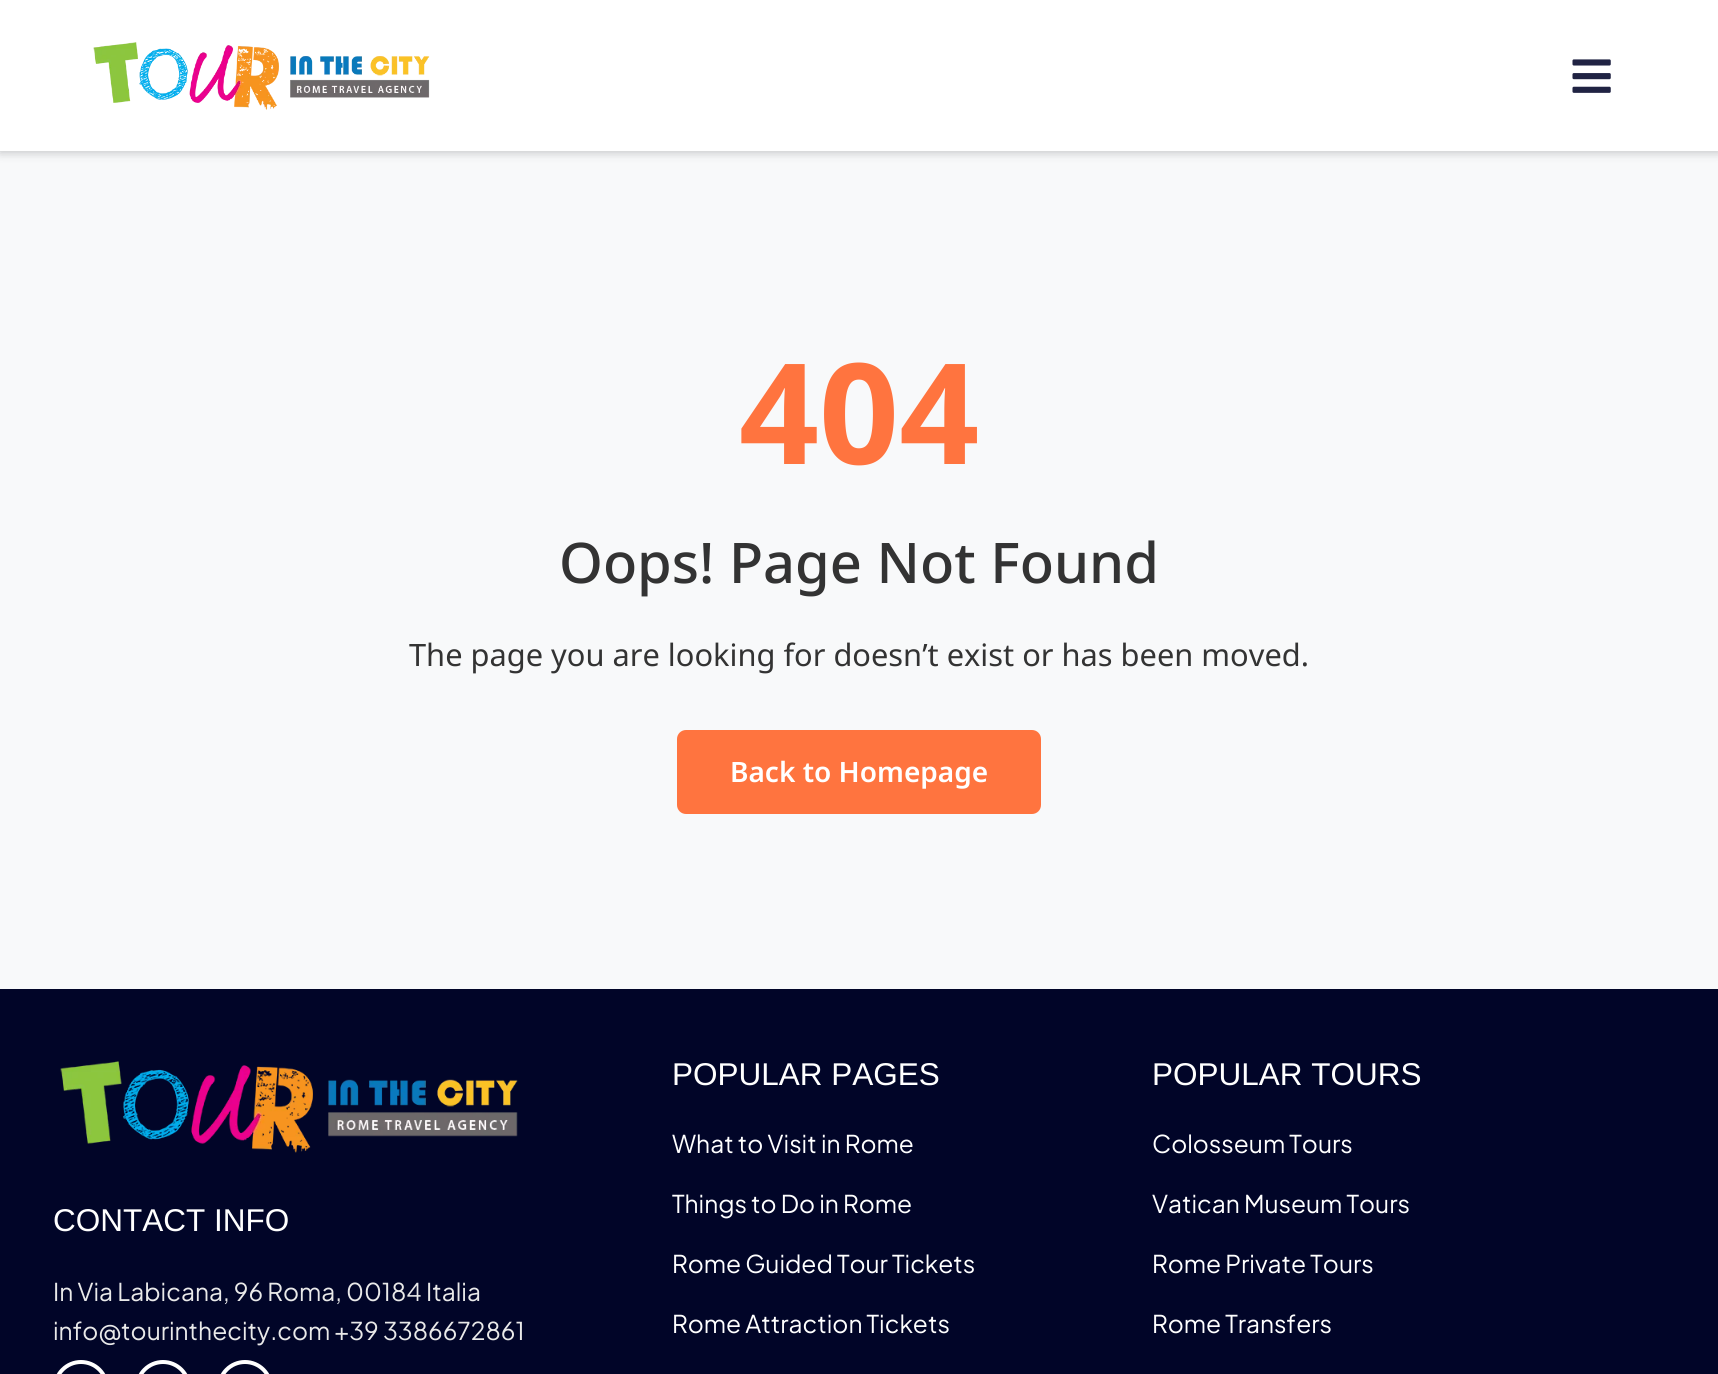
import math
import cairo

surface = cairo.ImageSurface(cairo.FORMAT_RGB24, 1718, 1374)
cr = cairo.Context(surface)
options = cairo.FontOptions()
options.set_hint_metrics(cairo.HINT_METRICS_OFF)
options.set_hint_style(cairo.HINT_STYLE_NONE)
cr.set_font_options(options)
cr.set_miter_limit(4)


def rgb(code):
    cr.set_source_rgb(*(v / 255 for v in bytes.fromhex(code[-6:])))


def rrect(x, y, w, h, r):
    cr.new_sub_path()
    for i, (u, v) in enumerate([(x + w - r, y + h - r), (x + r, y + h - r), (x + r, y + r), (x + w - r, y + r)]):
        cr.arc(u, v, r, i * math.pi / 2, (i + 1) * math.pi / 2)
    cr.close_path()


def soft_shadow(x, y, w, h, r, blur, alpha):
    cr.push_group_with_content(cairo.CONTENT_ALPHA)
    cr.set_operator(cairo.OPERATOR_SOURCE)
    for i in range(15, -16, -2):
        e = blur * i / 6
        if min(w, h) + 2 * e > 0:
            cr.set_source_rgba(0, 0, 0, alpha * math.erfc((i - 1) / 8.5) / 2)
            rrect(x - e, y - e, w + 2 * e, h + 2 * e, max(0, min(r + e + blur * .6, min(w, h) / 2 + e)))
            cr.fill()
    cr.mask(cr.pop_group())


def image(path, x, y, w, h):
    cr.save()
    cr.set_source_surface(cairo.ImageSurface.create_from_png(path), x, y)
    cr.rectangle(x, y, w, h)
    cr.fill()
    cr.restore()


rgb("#f8f9fa")
cr.paint()
rgb("#202124")
soft_shadow(0, 2, 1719, 150, 0, 5, 0.28)
rgb("#ffffff")
cr.rectangle(0, 0, 1718, 151)
cr.fill()
image("img/1.png", 93, 42, 337, 68)
image("img/2.png", 1572, 59, 39, 34)
rgb("#ff743f")
rrect(677, 730, 364, 84, 9)
cr.fill()
rgb("#010528")
cr.rectangle(0, 989, 1718, 385)
cr.fill()
image("img/3.png", 60, 1061, 458, 92)
rrect(55, 1362, 52, 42, 26)
rgb("#ffffff")
cr.set_line_width(4)
cr.stroke()
rrect(137, 1362, 52, 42, 26)
cr.stroke()
rrect(219, 1362, 52, 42, 26)
cr.stroke()
cr.select_font_face("Noto Sans", cairo.FONT_SLANT_NORMAL, cairo.FONT_WEIGHT_BOLD)
cr.set_font_size(140)
rgb("#ff743f")
cr.move_to(739, 464)
cr.show_text("404")
cr.select_font_face("Noto Sans Medium")
cr.set_font_size(56)
rgb("#333333")
cr.move_to(559, 583)
cr.show_text("Oops! Page Not Found")
cr.select_font_face("Noto Sans")
cr.set_font_size(30.8)
cr.move_to(409, 666)
cr.show_text("The page you are looking for doesn’t exist or has been moved.")
cr.select_font_face("Noto Sans SemiBold")
cr.set_font_size(28)
rgb("#ffffff")
cr.move_to(730, 782)
cr.show_text("Back to Homepage")
cr.select_font_face("Liberation Sans")
cr.set_font_size(31.5)
cr.move_to(53, 1231)
cr.show_text("CONTACT INFO")
cr.select_font_face("Plus Jakarta Sans")
cr.set_font_size(24.5)
rgb("#e9e9e9")
cr.move_to(53, 1301)
cr.show_text("In Via Labicana, 96 Roma, 00184 Italia")
cr.move_to(53, 1340)
cr.show_text("info@tourinthecity.com +39 3386672861")
cr.select_font_face("Liberation Sans")
cr.set_font_size(31.5)
rgb("#ffffff")
cr.move_to(672, 1085)
cr.show_text("POPULAR PAGES")
cr.select_font_face("Plus Jakarta Sans")
cr.set_font_size(24.5)
for x, y, s in [
    (672, 1153, "What to Visit in Rome"),
    (672, 1213, "Things to Do in Rome"),
    (672, 1273, "Rome Guided Tour Tickets"),
    (672, 1333, "Rome Attraction Tickets"),
]:
    cr.move_to(x, y)
    cr.show_text(s)
cr.select_font_face("Liberation Sans")
cr.set_font_size(31.5)
cr.move_to(1152, 1085)
cr.show_text("POPULAR TOURS")
cr.select_font_face("Plus Jakarta Sans")
cr.set_font_size(24.5)
for x, y, s in [
    (1152, 1153, "Colosseum Tours"),
    (1152, 1213, "Vatican Museum Tours"),
    (1152, 1273, "Rome Private Tours"),
    (1152, 1333, "Rome Transfers"),
]:
    cr.move_to(x, y)
    cr.show_text(s)
surface.write_to_png("page.png")
